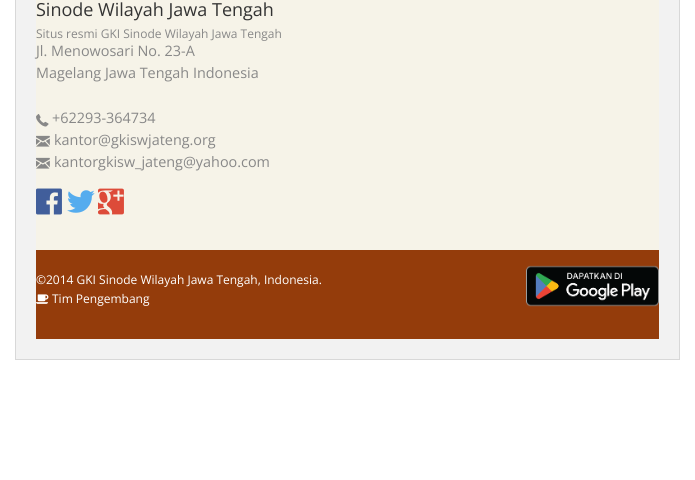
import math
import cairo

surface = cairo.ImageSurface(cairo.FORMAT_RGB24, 695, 480)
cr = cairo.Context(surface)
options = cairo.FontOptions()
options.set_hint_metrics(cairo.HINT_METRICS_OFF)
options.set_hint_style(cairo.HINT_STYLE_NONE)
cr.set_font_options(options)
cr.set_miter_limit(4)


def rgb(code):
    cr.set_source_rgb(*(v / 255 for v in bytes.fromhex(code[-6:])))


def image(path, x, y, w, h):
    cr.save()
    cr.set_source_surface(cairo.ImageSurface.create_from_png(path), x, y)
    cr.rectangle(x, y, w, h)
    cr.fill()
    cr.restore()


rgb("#ffffff")
cr.paint()
rgb("#f2f2f2")
cr.rectangle(15.5, -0.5, 664, 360)
cr.fill_preserve()
rgb("#d8d8d8")
cr.set_line_width(1)
cr.stroke()
rgb("#f6f3e8")
cr.rectangle(36, 0, 623, 250)
cr.fill()
image("img/1.png", 36, 114, 13, 13)
image("img/2.png", 36, 135, 14, 12)
image("img/2.png", 36, 157, 14, 12)
image("img/3.png", 36, 188, 26, 27)
image("img/4.png", 67, 190, 28, 23)
image("img/5.png", 98, 188, 26, 27)
rgb("#943c0b")
cr.rectangle(36, 250, 623, 89)
cr.fill()
image("img/6.png", 36, 294, 13, 10)
image("img/7.png", 526, 265, 133, 42)
cr.select_font_face("Open Sans")
cr.set_font_size(18)
rgb("#333333")
cr.move_to(36, 16)
cr.show_text("Sinode Wilayah Jawa Tengah")
cr.set_font_size(12)
rgb("#888888")
cr.move_to(36, 38)
cr.show_text("Situs resmi GKI Sinode Wilayah Jawa Tengah")
cr.set_font_size(14.4)
for x, y, s in [
    (36, 56, "Jl. Menowosari No. 23-A"),
    (36, 78, "Magelang Jawa Tengah Indonesia"),
    (52, 123, "+62293-364734"),
    (54, 145, "kantor@gkiswjateng.org"),
    (54, 167, "kantorgkisw_jateng@yahoo.com"),
]:
    cr.move_to(x, y)
    cr.show_text(s)
cr.set_font_size(12)
rgb("#ffffff")
cr.move_to(36, 284)
cr.show_text("©2014 GKI Sinode Wilayah Jawa Tengah, Indonesia.")
cr.move_to(52, 303)
cr.show_text("Tim Pengembang")
surface.write_to_png("page.png")
